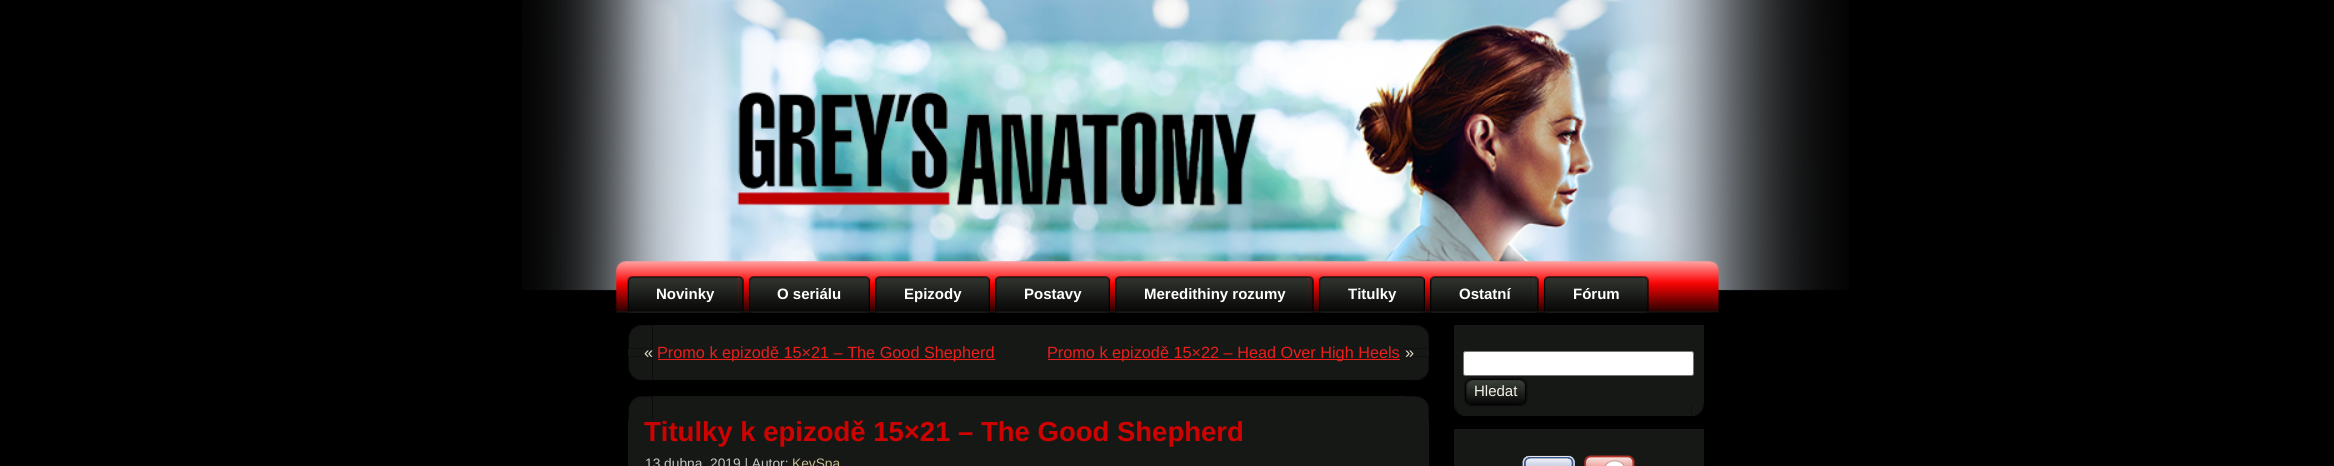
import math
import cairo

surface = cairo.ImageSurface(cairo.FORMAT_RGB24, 2334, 466)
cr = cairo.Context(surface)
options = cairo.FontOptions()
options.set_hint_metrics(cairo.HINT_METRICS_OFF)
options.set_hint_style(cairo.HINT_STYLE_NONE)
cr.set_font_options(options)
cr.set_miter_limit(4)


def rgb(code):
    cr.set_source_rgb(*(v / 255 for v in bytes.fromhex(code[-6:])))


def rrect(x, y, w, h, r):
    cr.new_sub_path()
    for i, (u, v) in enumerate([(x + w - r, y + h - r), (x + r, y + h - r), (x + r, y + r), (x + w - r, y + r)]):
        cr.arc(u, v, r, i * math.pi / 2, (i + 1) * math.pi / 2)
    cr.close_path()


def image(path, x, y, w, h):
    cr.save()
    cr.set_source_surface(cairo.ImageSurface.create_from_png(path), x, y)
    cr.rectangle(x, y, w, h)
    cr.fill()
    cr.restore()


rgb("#000000")
cr.paint()
image("img/1.png", 522, 0, 1327, 291)
image("img/2.png", 616, 261, 1094, 52)
image("img/3.png", 1710, 261, 9, 52)
image("img/4.png", 627, 276, 112, 37)
image("img/5.png", 738, 276, 6, 37)
image("img/6.png", 748, 276, 117, 37)
image("img/7.png", 865, 276, 5, 37)
image("img/8.png", 875, 276, 110, 37)
image("img/7.png", 985, 276, 5, 37)
image("img/8.png", 995, 276, 110, 37)
image("img/7.png", 1105, 276, 5, 37)
image("img/9.png", 1115, 276, 194, 37)
image("img/5.png", 1308, 276, 6, 37)
image("img/10.png", 1318, 276, 102, 37)
image("img/11.png", 1420, 276, 5, 37)
image("img/12.png", 1430, 276, 104, 37)
image("img/5.png", 1533, 276, 6, 37)
image("img/13.png", 1543, 276, 101, 37)
image("img/5.png", 1643, 276, 6, 37)
image("img/14.png", 628, 325, 25, 24)
rgb("#161816")
cr.rectangle(653, 325, 752, 24)
cr.fill()
image("img/15.png", 1405, 325, 24, 24)
for x, y, w, h, color in [
    (628, 349, 25, 7, "#161816"),
    (653, 356, 752, 24, "#161816"),
    (658, 359, 337, 1, "#e91f1c"),
    (1048, 359, 352, 1, "#e91f1c"),
    (653, 349, 776, 7, "#161816"),
]:
    rgb(color)
    cr.rectangle(x, y, w, h)
    cr.fill()
image("img/16.png", 628, 356, 25, 24)
image("img/17.png", 1405, 356, 24, 24)
image("img/18.png", 628, 396, 25, 24)
cr.rectangle(653, 396, 752, 24)
cr.fill()
image("img/19.png", 1405, 396, 24, 24)
for x, y, w, h, color in [
    (628, 420, 25, 46, "#161816"),
    (653, 420, 776, 46, "#161816"),
    (1454, 325, 13, 13, "#161816"),
    (1467, 325, 237, 13, "#161816"),
    (1454, 338, 12, 66, "#161816"),
    (1466, 338, 238, 66, "#161816"),
]:
    rgb(color)
    cr.rectangle(x, y, w, h)
    cr.fill()
rgb("#ffffff")
rrect(1463.5, 351.5, 230, 24, 2)
cr.fill_preserve()
rgb("#767676")
cr.set_line_width(1)
cr.stroke()
image("img/22.png", 1454, 404, 12, 12)
rgb("#161816")
cr.rectangle(1466, 404, 225, 12)
cr.fill()
image("img/20.png", 1464, 377, 53, 30)
image("img/21.png", 1516, 377, 12, 30)
image("img/23.png", 1691, 404, 13, 12)
for x, y, w, h, color in [
    (1454, 429, 13, 13, "#161816"),
    (1467, 429, 224, 12, "#161816"),
    (1691, 429, 13, 37, "#161816"),
    (1454, 442, 12, 24, "#161816"),
    (1466, 441, 225, 25, "#161816"),
]:
    rgb(color)
    cr.rectangle(x, y, w, h)
    cr.fill()
image("img/24.png", 1522, 455, 53, 11)
image("img/25.png", 1584, 455, 51, 11)
cr.select_font_face("Liberation Sans", cairo.FONT_SLANT_NORMAL, cairo.FONT_WEIGHT_BOLD)
cr.set_font_size(15)
rgb("#ffffff")
for x, y, s in [
    (656, 299, "Novinky"),
    (777, 299, "O seriálu"),
    (904, 299, "Epizody"),
    (1024, 299, "Postavy"),
    (1144, 299, "Meredithiny rozumy"),
    (1348, 299, "Titulky"),
    (1459, 299, "Ostatní"),
    (1573, 299, "Fórum"),
]:
    cr.move_to(x, y)
    cr.show_text(s)
cr.select_font_face("Liberation Sans")
cr.set_font_size(16.25)
rgb("#e5e0cc")
cr.move_to(644, 358)
cr.show_text("«")
rgb("#e91f1c")
cr.move_to(657, 358)
cr.show_text("Promo k epizodě 15×21 – The Good Shepherd")
cr.move_to(1047, 358)
cr.show_text("Promo k epizodě 15×22 – Head Over High Heels")
rgb("#e5e0cc")
cr.move_to(1405, 358)
cr.show_text("»")
cr.select_font_face("Liberation Sans", cairo.FONT_SLANT_NORMAL, cairo.FONT_WEIGHT_BOLD)
cr.set_font_size(27.5)
rgb("#cf0202")
cr.move_to(644, 441)
cr.show_text("Titulky k epizodě 15×21 – The Good Shepherd")
cr.select_font_face("Liberation Sans")
cr.set_font_size(13.75)
rgb("#c5cac4")
cr.move_to(645, 468)
cr.show_text("13 dubna, 2019 | Autor:")
rgb("#c8be92")
cr.move_to(792, 468)
cr.show_text("KevSpa")
cr.set_font_size(15)
rgb("#f3f1e7")
cr.move_to(1474, 396)
cr.show_text("Hledat")
surface.write_to_png("page.png")
